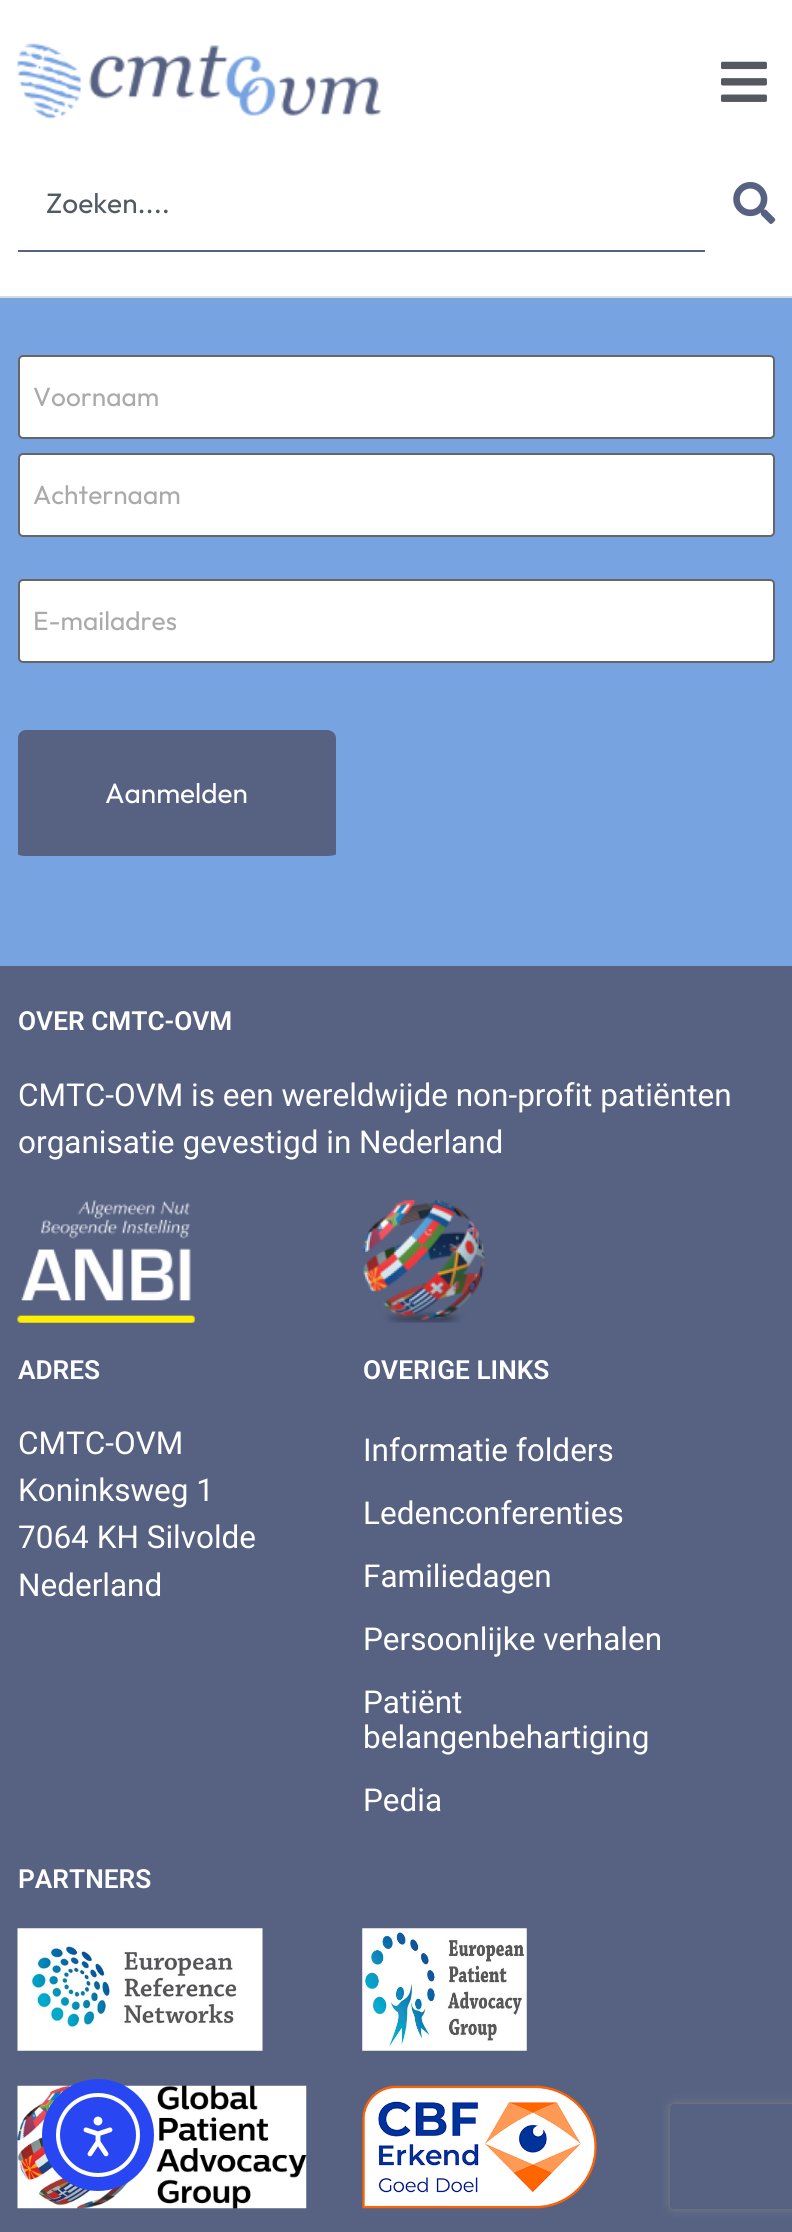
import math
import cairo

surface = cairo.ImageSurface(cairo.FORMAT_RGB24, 792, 2232)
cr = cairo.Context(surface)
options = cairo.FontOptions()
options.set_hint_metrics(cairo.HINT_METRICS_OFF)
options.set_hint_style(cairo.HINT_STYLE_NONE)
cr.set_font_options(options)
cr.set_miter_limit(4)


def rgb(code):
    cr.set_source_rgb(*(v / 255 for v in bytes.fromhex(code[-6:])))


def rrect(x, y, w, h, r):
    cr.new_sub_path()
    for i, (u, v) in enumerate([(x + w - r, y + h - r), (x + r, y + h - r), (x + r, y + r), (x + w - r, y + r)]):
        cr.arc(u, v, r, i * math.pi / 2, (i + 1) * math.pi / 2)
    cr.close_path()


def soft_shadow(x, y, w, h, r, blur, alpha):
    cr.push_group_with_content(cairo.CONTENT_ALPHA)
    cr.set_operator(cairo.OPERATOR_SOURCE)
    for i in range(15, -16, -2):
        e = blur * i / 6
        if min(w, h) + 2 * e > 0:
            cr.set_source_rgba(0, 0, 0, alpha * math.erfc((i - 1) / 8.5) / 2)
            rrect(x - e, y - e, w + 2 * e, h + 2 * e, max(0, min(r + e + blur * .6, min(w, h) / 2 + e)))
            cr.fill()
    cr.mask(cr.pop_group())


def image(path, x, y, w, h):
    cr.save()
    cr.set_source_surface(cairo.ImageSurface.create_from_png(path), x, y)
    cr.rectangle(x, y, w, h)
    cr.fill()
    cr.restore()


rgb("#78a3e1")
cr.paint()
rgb("#ffffff")
cr.rectangle(0, 0, 792, 296)
cr.fill()
rgb("#dadada")
cr.rectangle(0, 296, 792, 2)
cr.fill()
image("img/1.png", 17, 43, 365, 76)
image("img/2.png", 721, 61, 46, 41)
rgb("#576283")
cr.rectangle(18, 250, 687, 2)
cr.fill()
image("img/3.png", 733, 182, 43, 42)
rgb("#ffffff")
rrect(19, 356, 755, 82, 4)
cr.fill_preserve()
rgb("#666666")
cr.stroke()
rgb("#ffffff")
rrect(19, 454, 755, 82, 4)
cr.fill_preserve()
rgb("#666666")
cr.stroke()
rgb("#ffffff")
rrect(19, 580, 755, 82, 4)
cr.fill_preserve()
rgb("#666666")
cr.stroke()
rgb("#576283")
cr.new_path()
cr.move_to(26, 730)
cr.line_to(327, 730)
cr.curve_to(332, 730, 336, 734, 336, 738)
cr.line_to(336, 854)
cr.curve_to(336, 855, 332, 856, 327, 856)
cr.line_to(26, 856)
cr.curve_to(21, 856, 18, 855, 18, 854)
cr.line_to(18, 738)
cr.curve_to(18, 734, 21, 730, 26, 730)
cr.close_path()
cr.fill()
cr.rectangle(0, 966, 792, 1266)
cr.fill()
image("img/4.png", 17, 1200, 179, 123)
image("img/5.png", 362, 1200, 123, 123)
image("img/6.png", 17, 1928, 246, 123)
image("img/7.png", 362, 1928, 165, 123)
image("img/8.png", 17, 2085, 290, 124)
image("img/9.png", 362, 2085, 235, 124)
rgb("#2847f3")
cr.arc(98, 2135, 56, 0, 2 * math.pi)
cr.fill()
cr.arc(98, 2135, 40, 0, 2 * math.pi)
rgb("#ffffff")
cr.set_line_width(4)
cr.stroke()
image("img/10.png", 83, 2116, 30, 41)
cr.save()
cr.set_fill_rule(cairo.FILL_RULE_EVEN_ODD)
cr.new_path()
cr.move_to(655, 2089)
cr.line_to(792, 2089)
cr.line_to(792, 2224)
cr.line_to(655, 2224)
cr.close_path()
cr.move_to(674, 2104)
cr.line_to(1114, 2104)
cr.curve_to(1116, 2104, 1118, 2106, 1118, 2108)
cr.line_to(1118, 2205)
cr.curve_to(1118, 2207, 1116, 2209, 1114, 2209)
cr.line_to(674, 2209)
cr.curve_to(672, 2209, 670, 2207, 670, 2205)
cr.line_to(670, 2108)
cr.curve_to(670, 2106, 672, 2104, 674, 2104)
cr.close_path()
cr.clip()
rgb("#808080")
soft_shadow(670, 2104, 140, 105, 4, 4.5, 1)
cr.restore()
cr.select_font_face("Outfit")
cr.set_font_size(28)
rgb("#515962")
cr.move_to(46, 213)
cr.show_text("Zoeken....")
cr.set_font_size(26.25)
rgb("#aaaaaa")
for x, y, s in [
    (33, 406, "Voornaam"),
    (33, 504, "Achternaam"),
    (33, 630, "E-mailadres"),
]:
    cr.move_to(x, y)
    cr.show_text(s)
cr.set_font_size(28)
rgb("#ffffff")
cr.move_to(105, 803)
cr.show_text("Aanmelden")
cr.select_font_face("Roboto SemiBold")
cr.set_font_size(26.25)
cr.move_to(18, 1030)
cr.show_text("OVER CMTC-OVM")
cr.select_font_face("Roboto")
cr.set_font_size(31.5)
cr.move_to(18, 1106)
cr.show_text("CMTC-OVM is een wereldwijde non-profit patiënten")
cr.move_to(18, 1153)
cr.show_text("organisatie gevestigd in Nederland")
cr.select_font_face("Roboto SemiBold")
cr.set_font_size(26.25)
cr.move_to(18, 1379)
cr.show_text("ADRES")
cr.select_font_face("Roboto")
cr.set_font_size(31.5)
for x, y, s in [
    (18, 1454, "CMTC-OVM"),
    (18, 1501, "Koninksweg 1"),
    (18, 1548, "7064 KH Silvolde"),
    (18, 1596, "Nederland"),
]:
    cr.move_to(x, y)
    cr.show_text(s)
cr.select_font_face("Roboto SemiBold")
cr.set_font_size(26.25)
cr.move_to(363, 1379)
cr.show_text("OVERIGE LINKS")
cr.select_font_face("Roboto")
cr.set_font_size(31.5)
for x, y, s in [
    (363, 1461, "Informatie folders"),
    (363, 1524, "Ledenconferenties"),
    (363, 1587, "Familiedagen"),
    (363, 1650, "Persoonlijke verhalen"),
    (363, 1713, "Patiënt"),
    (363, 1748, "belangenbehartiging"),
    (363, 1811, "Pedia"),
]:
    cr.move_to(x, y)
    cr.show_text(s)
cr.select_font_face("Roboto SemiBold")
cr.set_font_size(26.25)
cr.move_to(18, 1888)
cr.show_text("PARTNERS")
surface.write_to_png("page.png")
